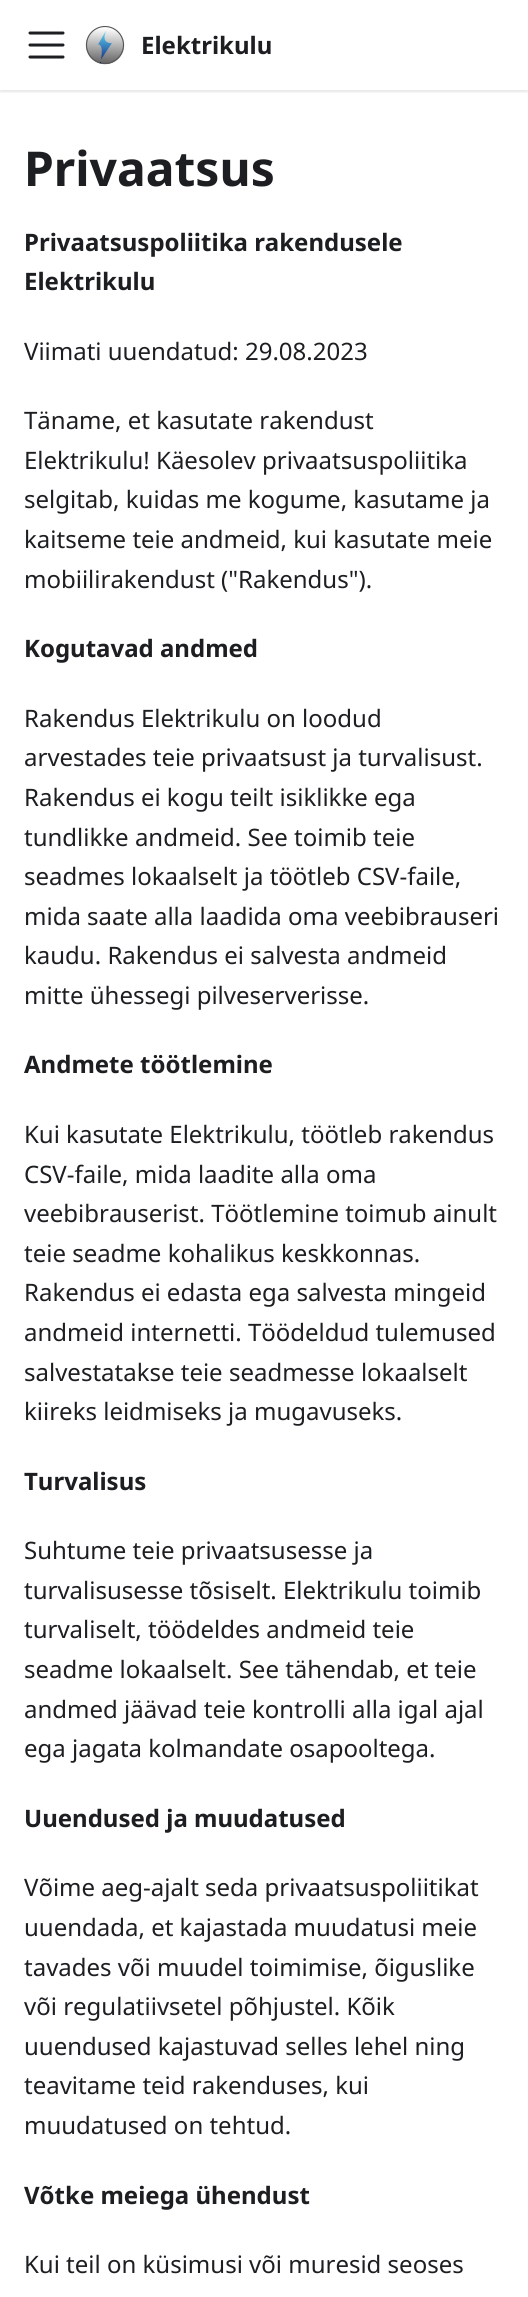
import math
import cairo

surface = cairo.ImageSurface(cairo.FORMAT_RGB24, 528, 2297)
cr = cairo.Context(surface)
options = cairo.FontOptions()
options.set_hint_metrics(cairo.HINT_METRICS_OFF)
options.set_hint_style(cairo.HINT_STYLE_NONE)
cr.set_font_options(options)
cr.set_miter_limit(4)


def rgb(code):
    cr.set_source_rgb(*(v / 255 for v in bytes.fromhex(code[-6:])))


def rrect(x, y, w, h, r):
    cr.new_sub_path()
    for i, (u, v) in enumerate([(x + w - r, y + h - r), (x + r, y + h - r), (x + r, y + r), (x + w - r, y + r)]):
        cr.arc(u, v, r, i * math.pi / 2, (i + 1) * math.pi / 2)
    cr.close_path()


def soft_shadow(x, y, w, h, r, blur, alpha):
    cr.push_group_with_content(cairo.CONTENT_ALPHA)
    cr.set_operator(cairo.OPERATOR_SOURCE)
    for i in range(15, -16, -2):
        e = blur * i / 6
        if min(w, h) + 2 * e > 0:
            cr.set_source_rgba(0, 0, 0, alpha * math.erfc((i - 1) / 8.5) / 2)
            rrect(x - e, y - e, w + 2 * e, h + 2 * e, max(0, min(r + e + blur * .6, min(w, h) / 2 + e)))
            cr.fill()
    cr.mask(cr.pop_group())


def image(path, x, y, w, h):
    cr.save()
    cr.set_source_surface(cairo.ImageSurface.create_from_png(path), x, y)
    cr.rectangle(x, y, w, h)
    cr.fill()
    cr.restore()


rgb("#ffffff")
cr.paint()
cr.save()
cr.rectangle(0, 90, 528, 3)
cr.clip()
rgb("#000000")
soft_shadow(0, 2, 528, 90, 0, 1.5, 0.1)
cr.restore()
cr.new_path()
cr.move_to(30, 33)
cr.line_to(63, 33)
cr.move_to(30, 45)
cr.line_to(63, 45)
cr.move_to(30, 57)
cr.line_to(63, 57)
rgb("#1c1e21")
cr.set_line_width(3)
cr.set_line_cap(cairo.LINE_CAP_ROUND)
cr.stroke()
image("img/1.png", 85, 26, 40, 39)
cr.select_font_face("Noto Sans", cairo.FONT_SLANT_NORMAL, cairo.FONT_WEIGHT_BOLD)
cr.set_font_size(24)
cr.move_to(141, 54)
cr.show_text("Elektrikulu")
cr.set_font_size(48)
cr.move_to(24, 186)
cr.show_text("Privaatsus")
cr.set_font_size(24)
cr.move_to(24, 251)
cr.show_text("Privaatsuspoliitika rakendusele")
cr.move_to(24, 290)
cr.show_text("Elektrikulu")
cr.select_font_face("Noto Sans")
for x, y, s in [
    (24, 360, "Viimati uuendatud: 29.08.2023"),
    (24, 429, "Täname, et kasutate rakendust"),
    (24, 469, "Elektrikulu! Käesolev privaatsuspoliitika"),
    (24, 508, "selgitab, kuidas me kogume, kasutame ja"),
    (24, 548, "kaitseme teie andmeid, kui kasutate meie"),
    (24, 588, "mobiilirakendust (\"Rakendus\")."),
]:
    cr.move_to(x, y)
    cr.show_text(s)
cr.select_font_face("Noto Sans", cairo.FONT_SLANT_NORMAL, cairo.FONT_WEIGHT_BOLD)
cr.move_to(24, 657)
cr.show_text("Kogutavad andmed")
cr.select_font_face("Noto Sans")
for x, y, s in [
    (24, 727, "Rakendus Elektrikulu on loodud"),
    (24, 766, "arvestades teie privaatsust ja turvalisust."),
    (24, 806, "Rakendus ei kogu teilt isiklikke ega"),
    (24, 846, "tundlikke andmeid. See toimib teie"),
    (24, 885, "seadmes lokaalselt ja töötleb CSV-faile,"),
    (24, 925, "mida saate alla laadida oma veebibrauseri"),
    (24, 964, "kaudu. Rakendus ei salvesta andmeid"),
    (24, 1004, "mitte ühessegi pilveserverisse."),
]:
    cr.move_to(x, y)
    cr.show_text(s)
cr.select_font_face("Noto Sans", cairo.FONT_SLANT_NORMAL, cairo.FONT_WEIGHT_BOLD)
cr.move_to(24, 1073)
cr.show_text("Andmete töötlemine")
cr.select_font_face("Noto Sans")
for x, y, s in [
    (24, 1143, "Kui kasutate Elektrikulu, töötleb rakendus"),
    (24, 1183, "CSV-faile, mida laadite alla oma"),
    (24, 1222, "veebibrauserist. Töötlemine toimub ainult"),
    (24, 1262, "teie seadme kohalikus keskkonnas."),
    (24, 1301, "Rakendus ei edasta ega salvesta mingeid"),
    (24, 1341, "andmeid internetti. Töödeldud tulemused"),
    (24, 1381, "salvestatakse teie seadmesse lokaalselt"),
    (24, 1420, "kiireks leidmiseks ja mugavuseks."),
]:
    cr.move_to(x, y)
    cr.show_text(s)
cr.select_font_face("Noto Sans", cairo.FONT_SLANT_NORMAL, cairo.FONT_WEIGHT_BOLD)
cr.move_to(24, 1490)
cr.show_text("Turvalisus")
cr.select_font_face("Noto Sans")
for x, y, s in [
    (24, 1559, "Suhtume teie privaatsusesse ja"),
    (24, 1599, "turvalisusesse tõsiselt. Elektrikulu toimib"),
    (24, 1638, "turvaliselt, töödeldes andmeid teie"),
    (24, 1678, "seadme lokaalselt. See tähendab, et teie"),
    (24, 1718, "andmed jäävad teie kontrolli alla igal ajal"),
    (24, 1757, "ega jagata kolmandate osapooltega."),
]:
    cr.move_to(x, y)
    cr.show_text(s)
cr.select_font_face("Noto Sans", cairo.FONT_SLANT_NORMAL, cairo.FONT_WEIGHT_BOLD)
cr.move_to(24, 1827)
cr.show_text("Uuendused ja muudatused")
cr.select_font_face("Noto Sans")
for x, y, s in [
    (24, 1896, "Võime aeg-ajalt seda privaatsuspoliitikat"),
    (24, 1936, "uuendada, et kajastada muudatusi meie"),
    (24, 1976, "tavades või muudel toimimise, õiguslike"),
    (24, 2015, "või regulatiivsetel põhjustel. Kõik"),
    (24, 2055, "uuendused kajastuvad selles lehel ning"),
    (24, 2094, "teavitame teid rakenduses, kui"),
    (24, 2134, "muudatused on tehtud."),
]:
    cr.move_to(x, y)
    cr.show_text(s)
cr.select_font_face("Noto Sans", cairo.FONT_SLANT_NORMAL, cairo.FONT_WEIGHT_BOLD)
cr.move_to(24, 2204)
cr.show_text("Võtke meiega ühendust")
cr.select_font_face("Noto Sans")
cr.move_to(24, 2273)
cr.show_text("Kui teil on küsimusi või muresid seoses")
surface.write_to_png("page.png")
